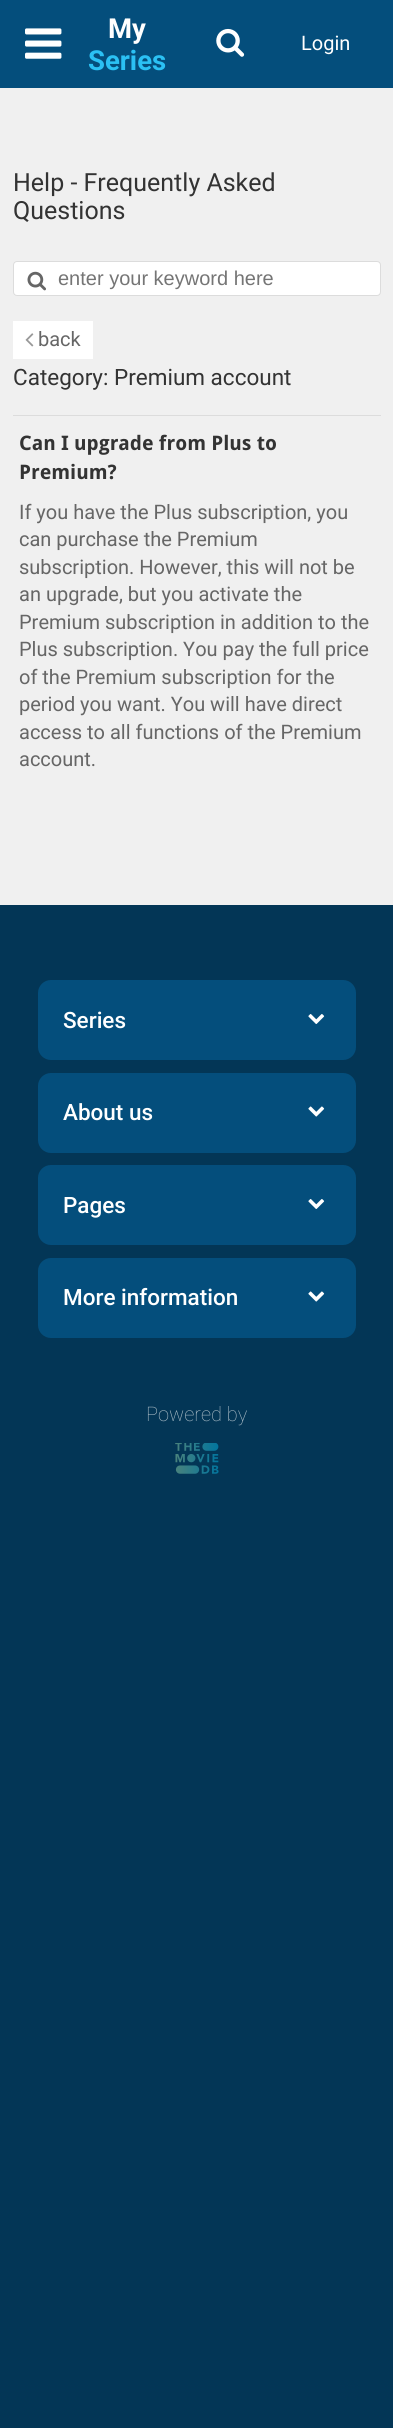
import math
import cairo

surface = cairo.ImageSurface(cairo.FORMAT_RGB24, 393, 2428)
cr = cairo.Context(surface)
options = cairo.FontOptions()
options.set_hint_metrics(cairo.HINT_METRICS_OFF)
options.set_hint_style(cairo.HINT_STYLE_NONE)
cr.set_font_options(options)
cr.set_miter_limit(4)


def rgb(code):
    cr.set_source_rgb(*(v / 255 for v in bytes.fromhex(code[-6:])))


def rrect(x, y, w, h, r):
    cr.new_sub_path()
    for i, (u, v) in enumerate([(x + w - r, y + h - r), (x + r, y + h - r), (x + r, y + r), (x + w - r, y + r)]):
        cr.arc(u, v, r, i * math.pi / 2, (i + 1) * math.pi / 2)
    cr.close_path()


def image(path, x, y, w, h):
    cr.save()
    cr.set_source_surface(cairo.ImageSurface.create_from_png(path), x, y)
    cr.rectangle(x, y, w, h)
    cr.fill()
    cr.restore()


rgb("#033656")
cr.paint()
rgb("#f0f0f0")
cr.rectangle(0, 88, 393, 817)
cr.fill()
rgb("#044e7c")
cr.rectangle(0, 0, 393, 88)
cr.fill()
image("img/1.png", 25, 28, 37, 31)
image("img/2.png", 216, 28, 29, 29)
rgb("#ffffff")
rrect(13.5, 261.5, 367, 34, 3.5)
cr.fill_preserve()
rgb("#dcdcdc")
cr.set_line_width(1)
cr.stroke()
image("img/3.png", 27, 271, 19, 20)
cr.rectangle(13, 415, 368, 1)
cr.fill()
rgb("#ffffff")
cr.rectangle(13, 321, 80, 38)
cr.fill()
image("img/4.png", 25, 333, 9, 14)
rgb("#044e7c")
rrect(38, 980, 318, 80, 13)
cr.fill()
image("img/5.png", 308, 1014, 17, 10)
rrect(38, 1073, 318, 80, 13)
cr.fill()
image("img/6.png", 308, 1106, 17, 11)
rrect(38, 1165, 318, 80, 13)
cr.fill()
image("img/5.png", 308, 1199, 17, 10)
rrect(38, 1258, 318, 80, 13)
cr.fill()
image("img/6.png", 308, 1291, 17, 11)
image("img/7.png", 175, 1443, 44, 31)
cr.select_font_face("Roboto", cairo.FONT_SLANT_NORMAL, cairo.FONT_WEIGHT_BOLD)
cr.set_font_size(27.5)
rgb("#ffffff")
cr.move_to(108, 38)
cr.show_text("My")
rgb("#2bc1f4")
cr.move_to(88, 70)
cr.show_text("Series")
cr.select_font_face("Roboto")
cr.set_font_size(20)
rgb("#ffffff")
cr.move_to(301, 50)
cr.show_text("Login")
cr.set_font_size(25)
rgb("#333333")
cr.move_to(13, 191)
cr.show_text("Help - Frequently Asked")
cr.move_to(13, 219)
cr.show_text("Questions")
cr.select_font_face("Liberation Sans")
cr.set_font_size(20)
rgb("#757575")
cr.move_to(58, 285)
cr.show_text("enter your keyword here")
cr.select_font_face("Roboto")
rgb("#666666")
cr.move_to(38, 346)
cr.show_text("back")
cr.set_font_size(22.5)
rgb("#333333")
cr.move_to(13, 385)
cr.show_text("Category: Premium account")
cr.select_font_face("Droid Sans", cairo.FONT_SLANT_NORMAL, cairo.FONT_WEIGHT_BOLD)
cr.set_font_size(20)
cr.move_to(19, 450)
cr.show_text("Can I upgrade from Plus to")
cr.move_to(19, 479)
cr.show_text("Premium?")
cr.select_font_face("Roboto")
rgb("#666666")
for x, y, s in [
    (19, 519, "If you have the Plus subscription, you"),
    (19, 546, "can purchase the Premium"),
    (19, 574, "subscription. However, this will not be"),
    (19, 601, "an upgrade, but you activate the"),
    (19, 629, "Premium subscription in addition to the"),
    (19, 656, "Plus subscription. You pay the full price"),
    (19, 684, "of the Premium subscription for the"),
    (19, 711, "period you want. You will have direct"),
    (19, 739, "access to all functions of the Premium"),
    (19, 766, "account."),
]:
    cr.move_to(x, y)
    cr.show_text(s)
cr.select_font_face("Roboto Medium")
cr.set_font_size(22.5)
rgb("#ffffff")
for x, y, s in [
    (63, 1028, "Series"),
    (63, 1120, "About us"),
    (63, 1213, "Pages"),
    (63, 1305, "More information"),
]:
    cr.move_to(x, y)
    cr.show_text(s)
cr.select_font_face("Roboto Thin")
cr.set_font_size(20)
rgb("#b3c3cc")
cr.move_to(146, 1421)
cr.show_text("Powered by")
surface.write_to_png("page.png")
